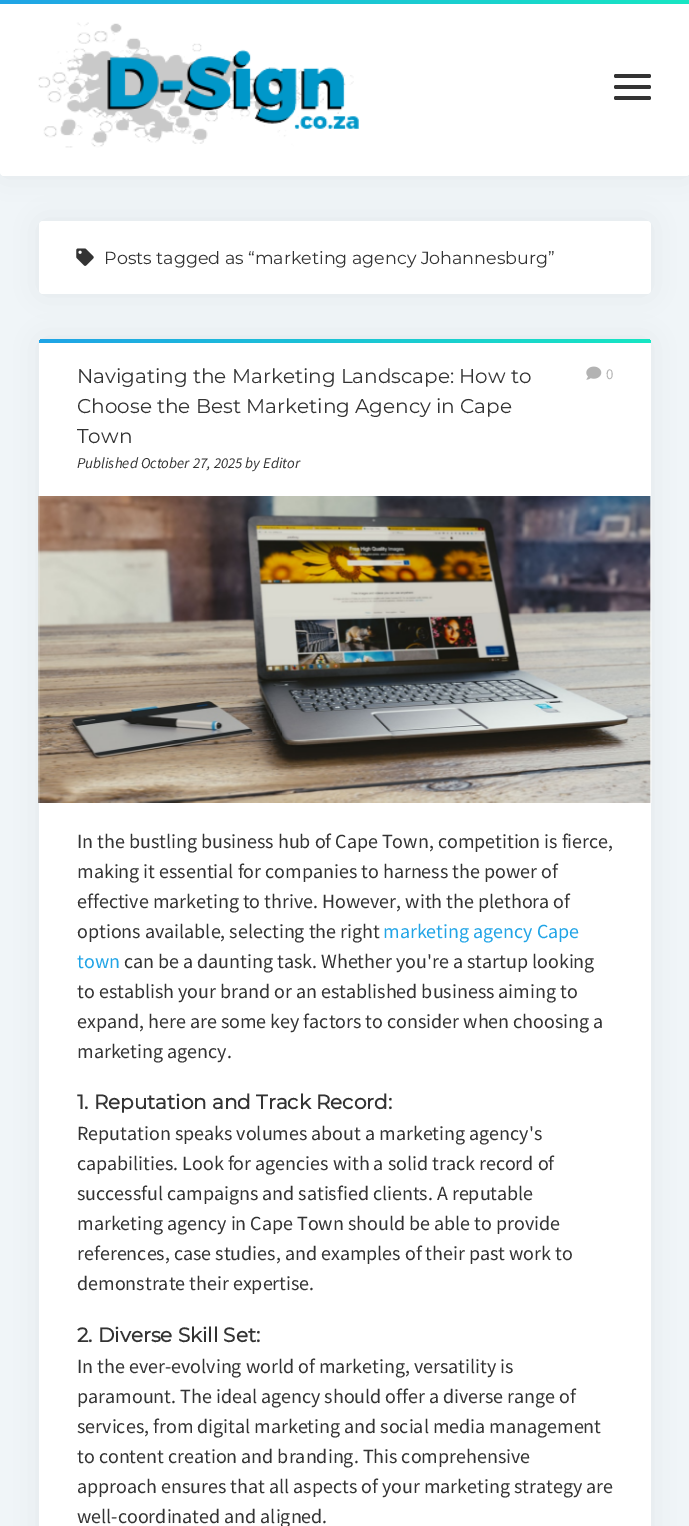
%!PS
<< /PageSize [689 1526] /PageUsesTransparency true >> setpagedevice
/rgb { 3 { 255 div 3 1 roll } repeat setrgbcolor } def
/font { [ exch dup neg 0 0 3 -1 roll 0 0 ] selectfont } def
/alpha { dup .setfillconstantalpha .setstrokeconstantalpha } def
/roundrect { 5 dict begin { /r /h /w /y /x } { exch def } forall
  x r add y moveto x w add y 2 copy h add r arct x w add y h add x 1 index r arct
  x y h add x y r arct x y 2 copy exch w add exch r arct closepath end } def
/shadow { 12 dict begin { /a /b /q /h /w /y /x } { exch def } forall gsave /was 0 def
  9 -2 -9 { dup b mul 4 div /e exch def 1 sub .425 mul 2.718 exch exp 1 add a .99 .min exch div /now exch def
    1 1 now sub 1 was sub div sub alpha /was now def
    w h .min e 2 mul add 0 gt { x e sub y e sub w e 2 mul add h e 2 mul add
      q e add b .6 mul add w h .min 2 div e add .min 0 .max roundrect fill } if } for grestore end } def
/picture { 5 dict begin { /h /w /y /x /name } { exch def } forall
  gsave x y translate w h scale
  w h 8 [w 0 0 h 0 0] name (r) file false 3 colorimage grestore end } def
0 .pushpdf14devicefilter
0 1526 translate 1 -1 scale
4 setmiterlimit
240 245 248 rgb
0 0 689 1526 rectfill
0 0 0 rgb
39 221 612 73 4 15 0.05 shadow
255 255 255 rgb
39 221 612 73 4 roundrect fill
0 0 0 rgb
0 0 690 176 4 15 0.05 shadow
255 255 255 rgb
0 0 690 176 4 roundrect fill
(img/1.rgb) 38 22 321 126 picture
51 51 51 rgb
614 74 37 4 2 roundrect fill
614 85 37 4 2 roundrect fill
614 96 37 4 2 roundrect fill
gsave 0 0 moveto 689 0 lineto 689 4 lineto 0 4 lineto closepath clip newpath
<< /ShadingType 2 /ColorSpace /DeviceRGB /Coords [0 1.9 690 1.9] /Extend [true true] /Function << /FunctionType 2 /Domain [0 1] /C0 [0.125 0.643 0.902] /C1 [0.09 0.902 0.765] /N 1 >> >> shfill grestore
(img/2.rgb) 76 248 18 18 picture
0 0 0 rgb
39 339 612 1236 4 15 0.05 shadow
255 255 255 rgb
39 339 612 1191 4 roundrect fill
gsave 43 339 moveto 647 339 lineto 649 339 651 341 651 343 curveto 39 343 lineto 39 341 41 339 43 339 curveto closepath clip newpath
<< /ShadingType 2 /ColorSpace /DeviceRGB /Coords [39 341 651 341] /Extend [true true] /Function << /FunctionType 2 /Domain [0 1] /C0 [0.125 0.643 0.902] /C1 [0.09 0.902 0.765] /N 1 >> >> shfill grestore
(img/3.rgb) 586 366 16 14 picture
(img/4.rgb) 38 496 614 307 picture
/Montserrat-Thin 17.5 font
51 51 51 rgb
104 264 moveto (Posts tagged as “marketing agency Johannesburg”) show
/Montserrat-Thin 20 font
[
  [(Navigating the Marketing Landscape: How to) 77 383]
  [(Choose the Best Marketing Agency in Cape) 77 413]
  [(Town) 77 443]
] { aload pop moveto show } forall
/SourceSansPro-Regular 15 font
179 179 179 rgb
606 379 moveto (0) show
/SourceSansPro-Italic 15 font
51 51 51 rgb
77 468 moveto (Published October 27, 2025 by Editor) show
/SourceSansPro-Regular 20 font
[
  [(In the bustling business hub of Cape Town, competition is fierce,) 77 848]
  [(making it essential for companies to harness the power of) 77 878]
  [(effective marketing to thrive. However, with the plethora of) 77 908]
  [(options available, selecting the right) 77 938]
] { aload pop moveto show } forall
32 164 230 rgb
383 938 moveto (marketing agency Cape) show
77 968 moveto (town) show
51 51 51 rgb
[
  [(can be a daunting task. Whether you're a startup looking) 124 968]
  [(to establish your brand or an established business aiming to) 77 998]
  [(expand, here are some key factors to consider when choosing a) 77 1028]
  [(marketing agency.) 77 1058]
] { aload pop moveto show } forall
/Montserrat-Bold 20 font
77 1109 moveto (1. Reputation and Track Record:) show
/SourceSansPro-Regular 20 font
[
  [(Reputation speaks volumes about a marketing agency's) 77 1140]
  [(capabilities. Look for agencies with a solid track record of) 77 1170]
  [(successful campaigns and satisfied clients. A reputable) 77 1200]
  [(marketing agency in Cape Town should be able to provide) 77 1230]
  [(references, case studies, and examples of their past work to) 77 1260]
  [(demonstrate their expertise.) 77 1290]
] { aload pop moveto show } forall
/Montserrat-Bold 20 font
77 1342 moveto (2. Diverse Skill Set:) show
/SourceSansPro-Regular 20 font
[
  [(In the ever-evolving world of marketing, versatility is) 77 1373]
  [(paramount. The ideal agency should offer a diverse range of) 77 1403]
  [(services, from digital marketing and social media management) 77 1433]
  [(to content creation and branding. This comprehensive) 77 1463]
  [(approach ensures that all aspects of your marketing strategy are) 77 1493]
  [(well-coordinated and aligned.) 77 1523]
] { aload pop moveto show } forall
.poppdf14devicefilter showpage
